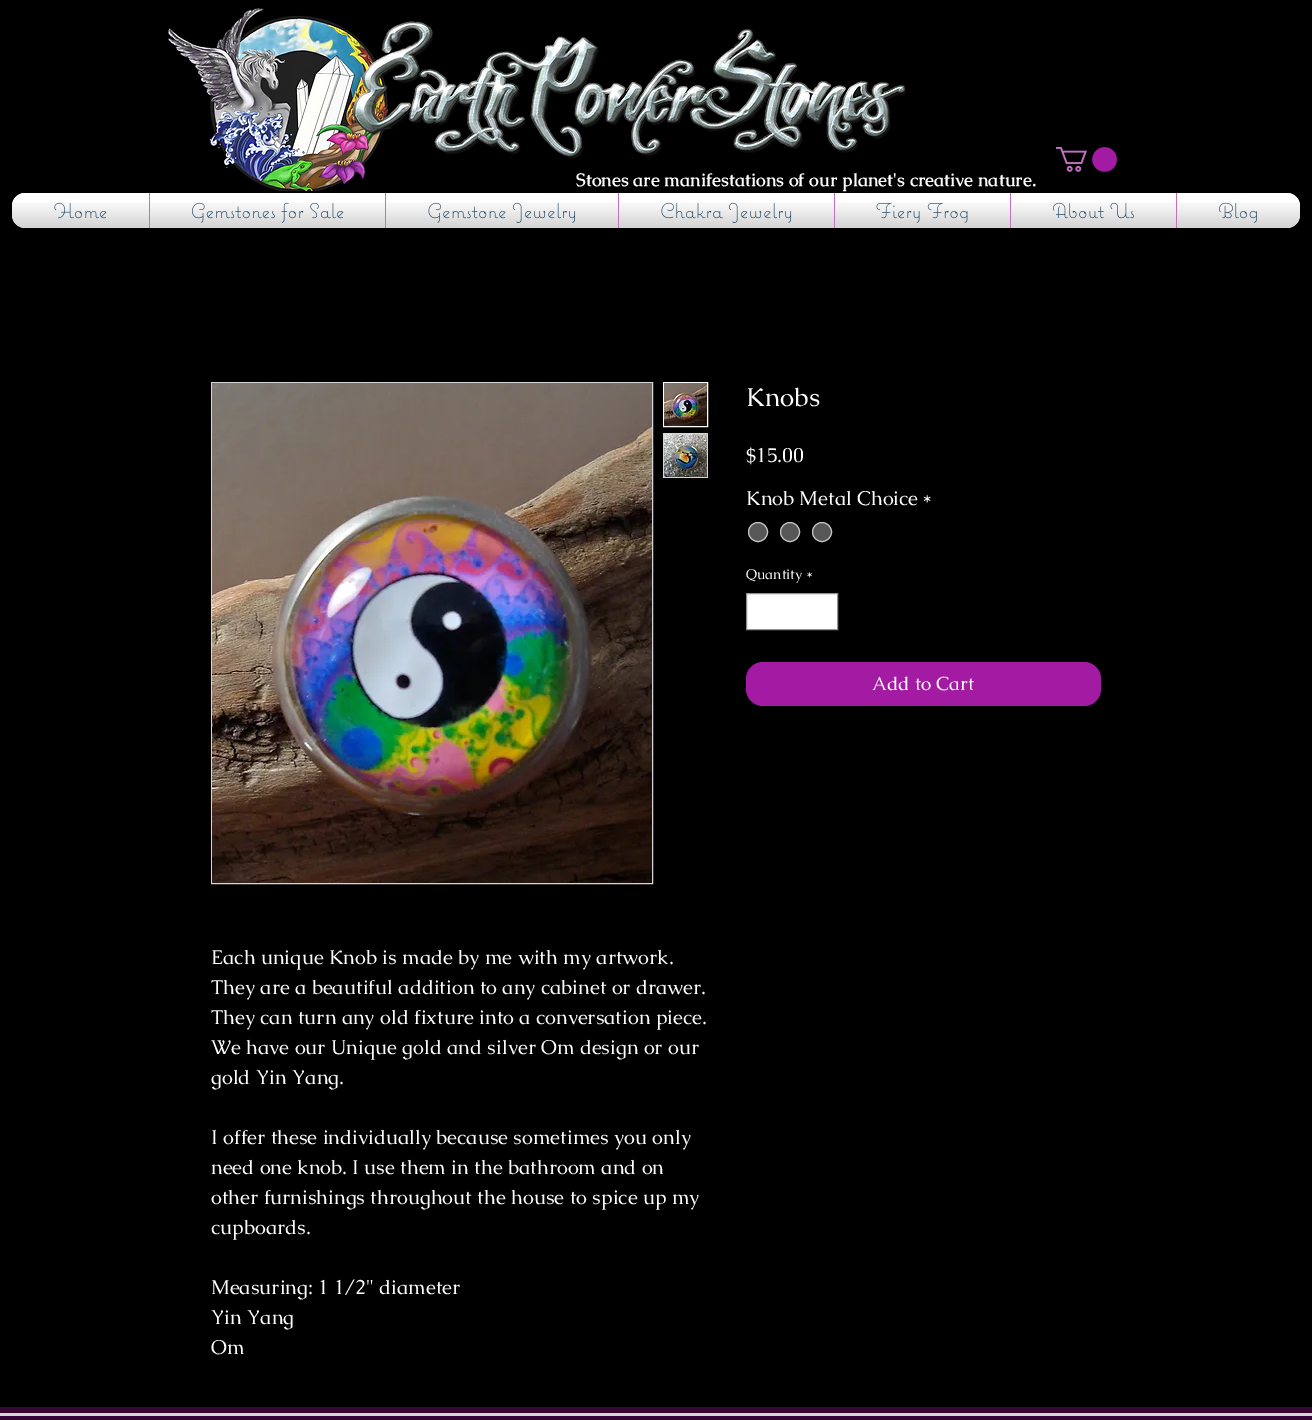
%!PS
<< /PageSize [1312 1420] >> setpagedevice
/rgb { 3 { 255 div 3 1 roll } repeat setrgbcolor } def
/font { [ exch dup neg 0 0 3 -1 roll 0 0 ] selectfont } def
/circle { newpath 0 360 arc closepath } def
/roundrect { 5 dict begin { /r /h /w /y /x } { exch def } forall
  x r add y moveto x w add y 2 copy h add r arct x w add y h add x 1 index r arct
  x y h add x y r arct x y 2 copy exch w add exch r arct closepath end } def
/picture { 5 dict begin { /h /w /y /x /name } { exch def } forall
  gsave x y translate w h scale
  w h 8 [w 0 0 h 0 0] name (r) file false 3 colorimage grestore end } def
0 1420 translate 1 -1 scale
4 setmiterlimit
0 0 0 rgb
0 0 1312 1420 rectfill
(img/1.rgb) 168 8 224 183 picture
(img/2.rgb) 352 21 554 138 picture
(img/3.rgb) 1056 147 61 25 picture
(img/4.rgb) 12 193 1288 26 picture
(img/5.rgb) 12 204 1288 24 picture
255 255 255 rgb
25 193 moveto 149 193 lineto 149 228 lineto 25 228 lineto 18 228 12 222 12 215 curveto 12 206 lineto 12 199 18 193 25 193 curveto closepath fill
[
  [150 193 235 35 255 255 255]
  [149 193 1 35 193 112 193]
  [386 193 232 35 255 255 255]
  [385 193 1 35 193 112 193]
  [619 193 215 35 255 255 255]
  [618 193 1 35 193 112 193]
  [835 193 175 35 255 255 255]
  [834 193 1 35 193 112 193]
  [1011 193 165 35 255 255 255]
  [1010 193 1 35 193 112 193]
] { aload pop rgb rectfill } forall
255 255 255 rgb
1176 193 moveto 1287 193 lineto 1294 193 1300 199 1300 206 curveto 1300 215 lineto 1300 222 1294 228 1287 228 curveto 1176 228 lineto closepath fill
193 112 193 rgb
1176 193 1 35 rectfill
87 87 87 rgb
758 532 9.5 circle gsave fill grestore
201 201 201 rgb
stroke
87 87 87 rgb
790 532 9.5 circle gsave fill grestore
201 201 201 rgb
stroke
87 87 87 rgb
822 532 9.5 circle gsave fill grestore
201 201 201 rgb
stroke
255 255 255 rgb
746.5 593.5 moveto 837.5 593.5 lineto 837.5 629.5 lineto 746.5 629.5 lineto closepath gsave fill grestore
146 146 146 rgb
stroke
163 26 163 rgb
746 662 355 44 17 roundrect fill
214 214 214 rgb
211.5 382.5 441 501 rectstroke
(img/20.rgb) 212 383 440 500 picture
255 255 255 rgb
663.5 382.5 44 44 rectstroke
(img/21.rgb) 664 383 43 43 picture
214 214 214 rgb
663 433 45 45 rectfill
(img/22.rgb) 664 434 43 43 picture
54 8 54 rgb
0 1407 1312 13 rectfill
214 214 214 rgb
0 1413 1312 3 rectfill
/Caudex-Bold 18 font
255 255 255 rgb
576 186 moveto (Stones are manifestations of our planet's creative nature.) show
/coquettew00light-Bold 21 font
0 50 84 rgb
54 218 moveto (Home) show
(img/6.rgb) 54 202 52 16 picture
(img/7.rgb) 12 202 137 26 picture
191 218 moveto (Gemstones for Sale) show
(img/8.rgb) 192 202 151 21 picture
(img/9.rgb) 150 202 235 26 picture
427 218 moveto (Gemstone Jewelry) show
(img/10.rgb) 428 202 147 21 picture
(img/11.rgb) 386 202 232 26 picture
660 218 moveto (Chakra Jewelry) show
(img/12.rgb) 661 202 130 21 picture
(img/13.rgb) 619 202 215 26 picture
876 218 moveto (Fiery Frog) show
(img/14.rgb) 876 203 92 20 picture
(img/15.rgb) 835 202 175 26 picture
1052 218 moveto (About Us) show
(img/16.rgb) 1053 202 81 16 picture
(img/17.rgb) 1011 202 165 26 picture
1218 218 moveto (Blog) show
(img/18.rgb) 1219 202 38 21 picture
(img/19.rgb) 1177 202 123 26 picture
/Caudex-Regular 26 font
255 255 255 rgb
746 406 moveto (Knobs) show
/Caudex-Regular 20 font
[
  [($15.00) 746 462]
  [(Knob Metal Choice) 746 505]
  [(*) 922 505]
] { aload pop moveto show } forall
/Caudex-Regular 14 font
746 579 moveto (Quantity *) show
/Caudex-Regular 19 font
872 690 moveto (Add to Cart) show
/Caudex-Regular 20 font
[
  [(Each unique Knob is made by me with my artwork.) 211 964]
  [(They are a beautiful addition to any cabinet or drawer.) 211 994]
  [(They can turn any old fixture into a conversation piece.) 211 1024]
  [(We have our Unique gold and silver Om design or our) 211 1054]
  [(gold Yin Yang.) 211 1084]
  [(I offer these individually because sometimes you only) 211 1144]
  [(need one knob. I use them in the bathroom and on) 211 1174]
  [(other furnishings throughout the house to spice up my) 211 1204]
  [(cupboards.) 211 1234]
  [(Measuring: 1 1/2" diameter) 211 1294]
  [(Yin Yang) 211 1324]
  [(Om) 211 1354]
] { aload pop moveto show } forall
showpage
